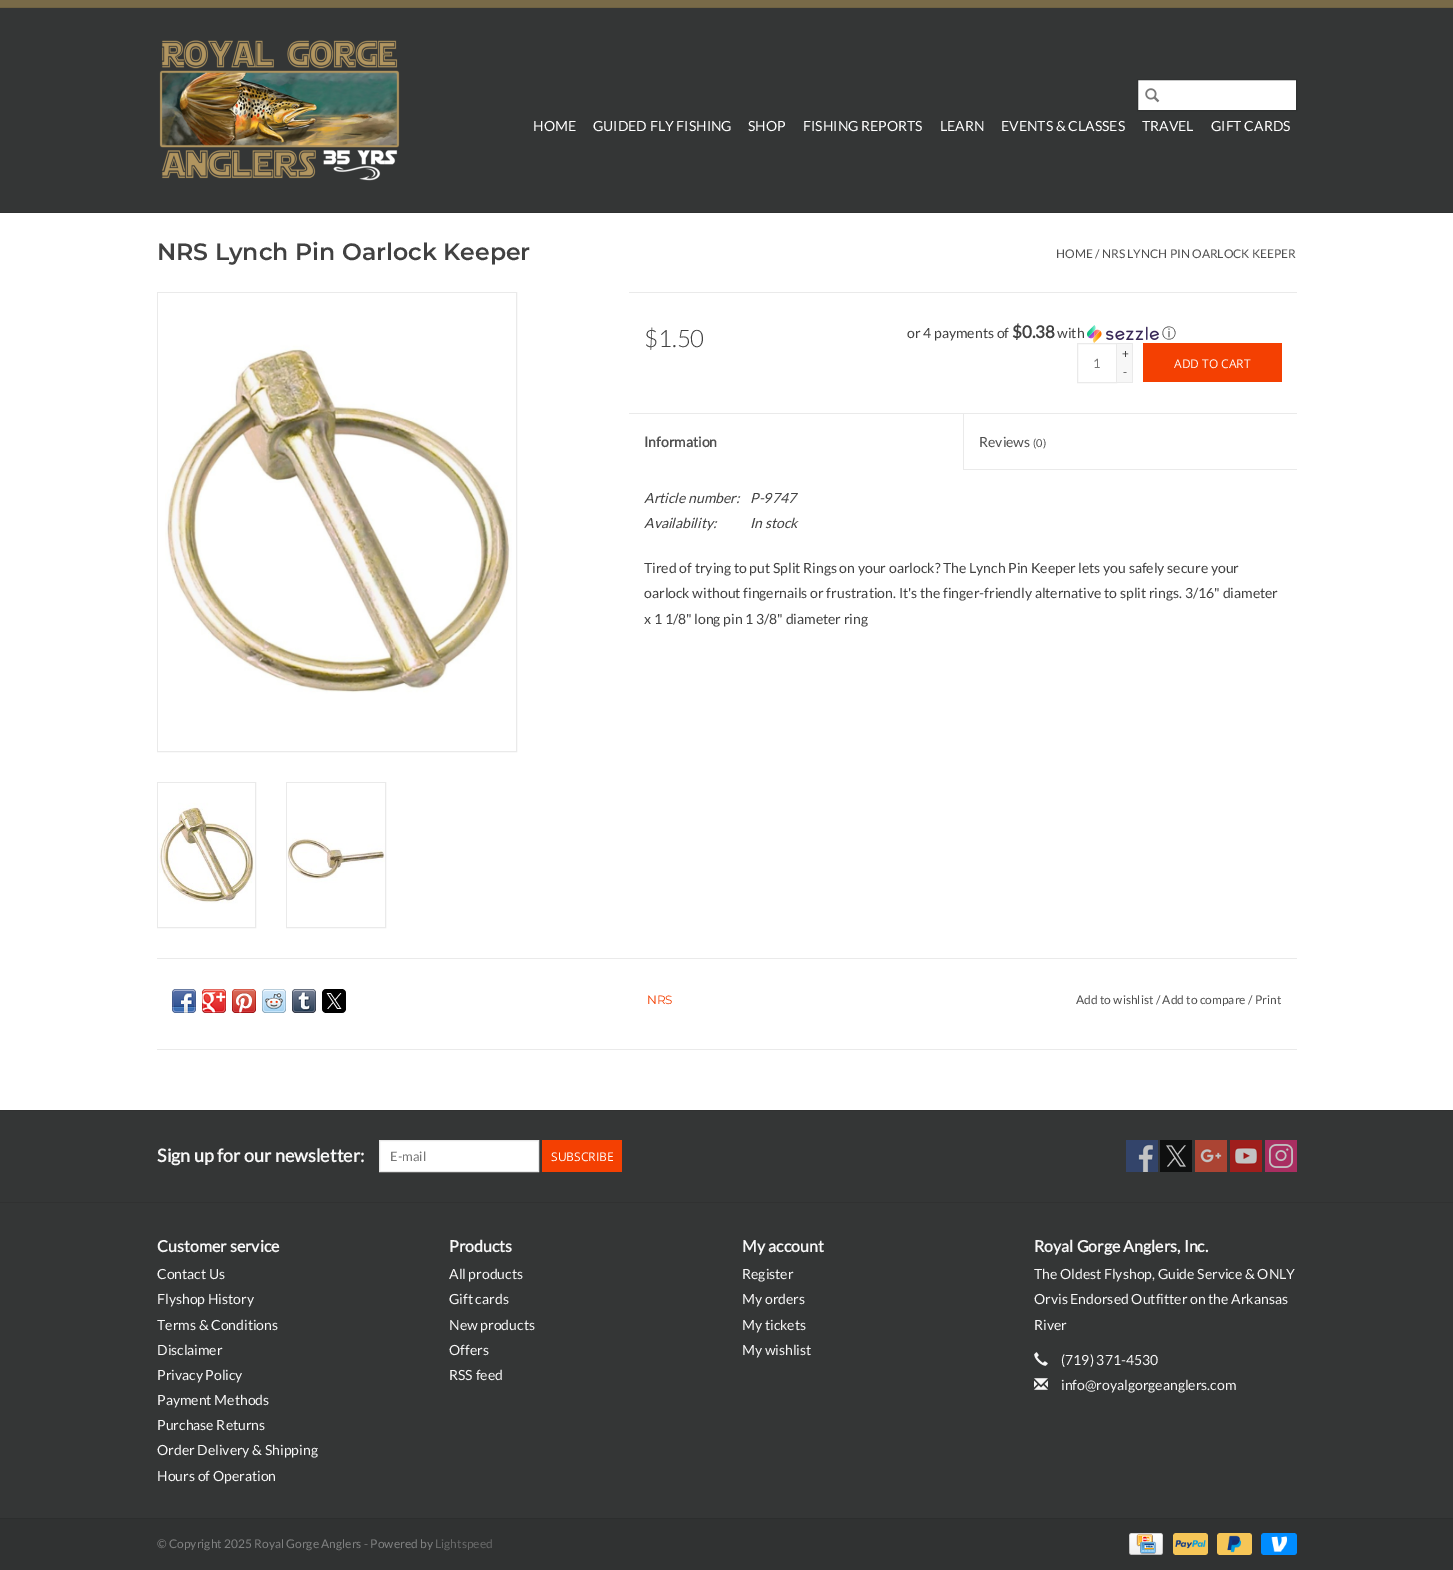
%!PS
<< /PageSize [1453 1570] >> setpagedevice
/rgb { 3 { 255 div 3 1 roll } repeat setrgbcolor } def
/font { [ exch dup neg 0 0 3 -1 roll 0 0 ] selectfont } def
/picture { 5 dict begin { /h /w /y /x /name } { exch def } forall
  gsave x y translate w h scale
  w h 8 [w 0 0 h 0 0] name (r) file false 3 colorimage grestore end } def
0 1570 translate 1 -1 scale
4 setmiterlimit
255 255 255 rgb
0 0 1453 1570 rectfill
[
  [0 8 1453 204 52 54 54]
  [0 212 1453 1 47 49 49]
  [0 0 1453 7 120 106 72]
  [0 7 1453 1 111 98 66]
] { aload pop rgb rectfill } forall
(img/1.rgb) 159 40 241 141 picture
255 255 255 rgb
1137.5 79.5 moveto 1296.5 79.5 lineto 1296.5 110.5 lineto 1137.5 110.5 lineto closepath gsave fill grestore
47 49 49 rgb
stroke
(img/2.rgb) 1145 88 15 15 picture
234 234 234 rgb
157.5 292.5 359 459 rectstroke
(img/3.rgb) 158 293 358 458 picture
157.5 782.5 98 145 rectstroke
(img/4.rgb) 158 783 97 144 picture
286.5 782.5 99 145 rectstroke
(img/5.rgb) 287 783 98 144 picture
629 292 668 1 rectfill
(img/6.rgb) 1087 325 72 18 picture
1077.5 343.5 39 39 rectstroke
[
  [1117 344 15 38 247 247 247]
  [1117 343 16 1 234 234 234]
  [1132 343 1 40 234 234 234]
  [1117 382 16 1 234 234 234]
  [1143 343 139 39 244 64 2]
  [629 413 668 1 234 234 234]
  [963 469 334 1 234 234 234]
  [963 414 1 56 234 234 234]
  [157 958 1140 1 234 234 234]
  [157 1049 1140 1 234 234 234]
] { aload pop rgb rectfill } forall
(img/7.rgb) 172 989 24 24 picture
(img/8.rgb) 202 989 24 24 picture
(img/9.rgb) 232 989 24 24 picture
(img/10.rgb) 262 989 24 24 picture
(img/11.rgb) 292 989 24 24 picture
(img/12.rgb) 322 989 24 24 picture
52 54 54 rgb
0 1111 1453 407 rectfill
48 49 49 rgb
0 1110 1453 1 rectfill
255 255 255 rgb
379.5 1140.5 moveto 538.5 1140.5 lineto 538.5 1171.5 lineto 379.5 1171.5 lineto closepath gsave fill grestore
233 233 233 rgb
stroke
244 64 2 rgb
542 1140 80 32 rectfill
(img/13.rgb) 1126 1140 32 32 picture
(img/14.rgb) 1160 1140 32 32 picture
(img/15.rgb) 1195 1140 32 32 picture
(img/16.rgb) 1230 1140 32 32 picture
(img/17.rgb) 1265 1140 32 32 picture
48 49 49 rgb
0 1202 1453 1 rectfill
(img/18.rgb) 1034 1352 14 14 picture
(img/19.rgb) 1034 1378 14 12 picture
44 46 46 rgb
0 1518 1453 1 rectfill
48 50 50 rgb
0 1519 1453 51 rectfill
(img/20.rgb) 1129 1533 34 22 picture
(img/21.rgb) 1173 1533 35 22 picture
(img/22.rgb) 1217 1533 35 22 picture
(img/23.rgb) 1261 1533 36 22 picture
/Lato-Regular 14 font
255 255 255 rgb
[
  [(HOME) 533 131]
  [(GUIDED FLY FISHING) 593 131]
  [(SHOP) 748 131]
  [(FISHING REPORTS) 803 131]
  [(LEARN) 940 131]
  [(EVENTS & CLASSES) 1001 131]
  [(TRAVEL) 1142 131]
  [(GIFT CARDS) 1211 131]
] { aload pop moveto show } forall
/Montserrat-SemiBold 23.6 font
65 65 65 rgb
157 260 moveto (NRS Lynch Pin Oarlock Keeper) show
/Lato-Regular 12 font
80 80 80 rgb
1056 258 moveto (HOME / NRS LYNCH PIN OARLOCK KEEPER) show
/Lato-Light 24 font
65 65 65 rgb
644 347 moveto ($1.50) show
/Lato-Regular 14 font
907 338 moveto (or 4 payments of) show
/Lato-Bold 17 font
1012 338 moveto ($0.38) show
/Lato-Regular 14 font
1057 338 moveto (with) show
/WenQuanYiZenHei-Medium 14 font
1162 338 moveto (ⓘ) show
/Lato-Regular 13 font
119 119 119 rgb
1093 368 moveto (1) show
/Lato-Regular 12 font
65 65 65 rgb
1122 358 moveto (+) show
1123 376 moveto (-) show
/OpenSans-Regular 12 font
255 255 255 rgb
1174 368 moveto (ADD TO CART) show
/Lato-Bold 14 font
80 80 80 rgb
644 447 moveto (Information) show
/Lato-Regular 14 font
979 447 moveto (Reviews) show
/Lato-Regular 11 font
1033 447 moveto (\(0\)) show
/Lato-Italic 14 font
65 65 65 rgb
[
  [(Article number:) 644 503]
  [(P-9747) 750 503]
  [(Availability:) 644 528]
  [(In stock) 750 528]
] { aload pop moveto show } forall
/Lato-Regular 14 font
[
  [(Tired of trying to put Split Rings on your oarlock? The Lynch Pin Keeper lets you safely secure your) 644 573]
  [(oarlock without fingernails or frustration. It's the finger-friendly alternative to split rings. 3/16" diameter) 644 598]
  [(x 1 1/8" long pin 1 3/8" diameter ring) 644 624]
] { aload pop moveto show } forall
/Montserrat-Regular 12 font
244 64 2 rgb
647 1004 moveto (NRS) show
/Lato-Regular 12 font
80 80 80 rgb
1076 1004 moveto (Add to wishlist / Add to compare / Print) show
/Lato-Bold 18 font
247 247 247 rgb
157 1162 moveto (Sign up for our newsletter:) show
/Lato-Regular 13 font
119 119 119 rgb
390 1161 moveto (E-mail) show
/OpenSans-Regular 12 font
255 255 255 rgb
551 1161 moveto (SUBSCRIBE) show
/Lato-Bold 16 font
247 247 247 rgb
157 1252 moveto (Customer service) show
/Lato-Regular 14 font
[
  [(Contact Us) 157 1279]
  [(Flyshop History) 157 1304]
  [(Terms & Conditions) 157 1330]
  [(Disclaimer) 157 1355]
  [(Privacy Policy) 157 1380]
  [(Payment Methods) 157 1405]
  [(Purchase Returns) 157 1430]
  [(Order Delivery & Shipping) 157 1455]
  [(Hours of Operation) 157 1481]
] { aload pop moveto show } forall
/Lato-Bold 16 font
449 1252 moveto (Products) show
/Lato-Regular 14 font
[
  [(All products) 449 1279]
  [(Gift cards) 449 1304]
  [(New products) 449 1330]
  [(Offers) 449 1355]
  [(RSS feed) 449 1380]
] { aload pop moveto show } forall
/Lato-Bold 16 font
742 1252 moveto (My account) show
/Lato-Regular 14 font
[
  [(Register) 742 1279]
  [(My orders) 742 1304]
  [(My tickets) 742 1330]
  [(My wishlist) 742 1355]
] { aload pop moveto show } forall
/Lato-Bold 16 font
1034 1252 moveto (Royal Gorge Anglers, Inc.) show
/Lato-Regular 14 font
[
  [(The Oldest Flyshop, Guide Service & ONLY) 1034 1279]
  [(Orvis Endorsed Outfitter on the Arkansas) 1034 1304]
  [(River) 1034 1330]
  [(\(719\) 371-4530) 1061 1365]
  [(info@royalgorgeanglers.com) 1061 1390]
] { aload pop moveto show } forall
/Lato-Regular 12 font
128 129 129 rgb
157 1548 moveto (© Copyright 2025 Royal Gorge Anglers - Powered by) show
104 105 105 rgb
435 1548 moveto (Lightspeed) show
showpage
